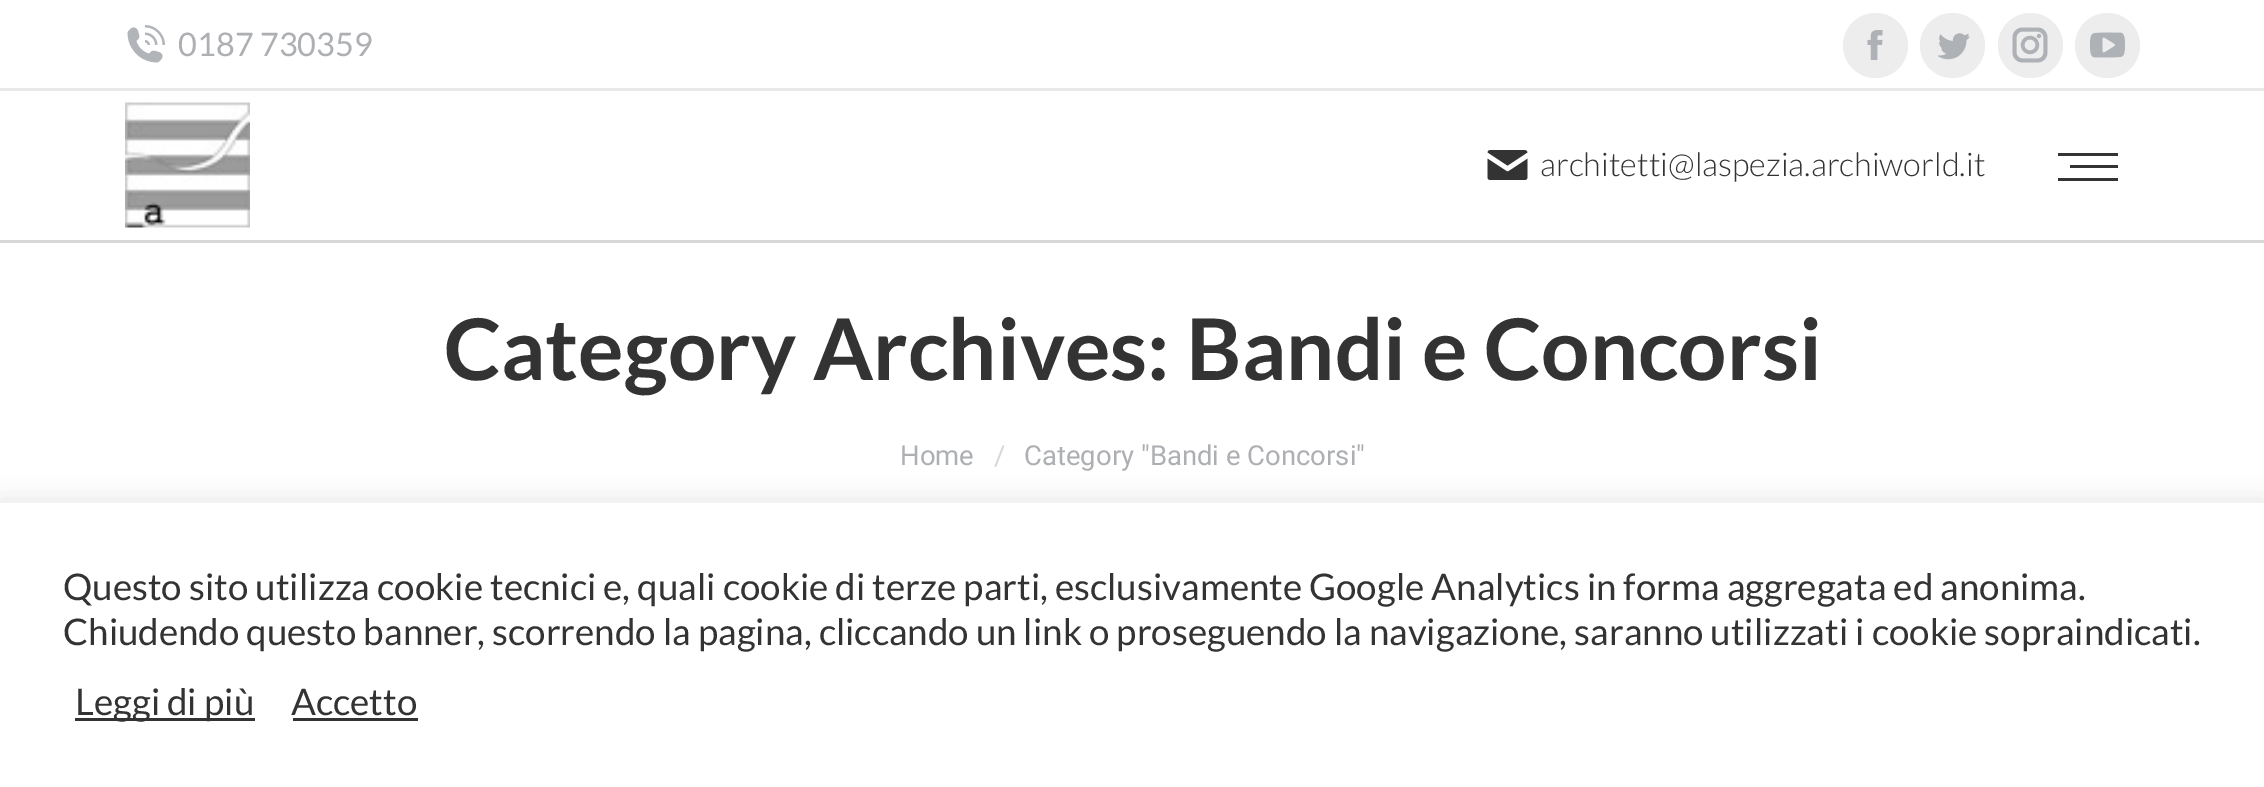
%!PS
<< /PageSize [2264 787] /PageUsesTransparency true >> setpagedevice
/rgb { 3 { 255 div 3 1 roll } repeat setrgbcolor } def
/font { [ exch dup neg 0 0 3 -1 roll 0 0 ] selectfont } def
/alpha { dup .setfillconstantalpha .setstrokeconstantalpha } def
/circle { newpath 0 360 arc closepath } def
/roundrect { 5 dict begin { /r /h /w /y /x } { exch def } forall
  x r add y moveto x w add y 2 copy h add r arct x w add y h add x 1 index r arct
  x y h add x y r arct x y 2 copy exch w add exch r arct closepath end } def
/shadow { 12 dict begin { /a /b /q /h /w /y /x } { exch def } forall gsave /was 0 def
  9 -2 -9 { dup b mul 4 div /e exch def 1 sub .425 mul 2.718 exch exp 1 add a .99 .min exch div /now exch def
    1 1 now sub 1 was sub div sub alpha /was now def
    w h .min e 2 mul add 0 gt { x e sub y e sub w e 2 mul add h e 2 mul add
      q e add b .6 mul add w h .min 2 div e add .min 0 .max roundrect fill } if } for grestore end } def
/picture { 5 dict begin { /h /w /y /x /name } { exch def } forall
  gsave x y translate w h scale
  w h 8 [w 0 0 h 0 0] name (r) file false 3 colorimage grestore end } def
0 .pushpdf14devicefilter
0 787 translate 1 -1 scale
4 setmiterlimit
255 255 255 rgb
0 0 2264 787 rectfill
216 216 216 rgb
0 240 2264 3 rectfill
(img/1.rgb) 127 25 38 38 picture
237 237 237 rgb
1875.5 45.5 32.5 circle fill
(img/2.rgb) 1867 30 16 30 picture
1952.5 45.5 32.5 circle fill
(img/3.rgb) 1938 33 32 27 picture
2030.5 45.5 32.5 circle fill
(img/4.rgb) 2012 27 36 36 picture
2107.5 45.5 32.5 circle fill
(img/5.rgb) 2090 32 35 26 picture
233 233 233 rgb
0 88 2264 3 rectfill
(img/6.rgb) 125 102 125 126 picture
(img/7.rgb) 1487 150 41 30 picture
[
  [2058 153 60 3 51 51 51]
  [2070 165 48 3 51 51 51]
  [2058 178 60 3 51 51 51]
] { aload pop rgb rectfill } forall
172 171 171 rgb
0 500 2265 285 0 12.5 0.3 shadow
[
  [0 503 2264 284 255 255 255]
  [75 718 180 3 51 51 51]
  [293 718 125 3 51 51 51]
] { aload pop rgb rectfill } forall
/Lato-Regular 32.5 font
173 175 179 rgb
178 56 moveto (0187 730359) show
/Lato-Light 32.5 font
51 51 51 rgb
1540 176 moveto (architetti@laspezia.archiworld.it) show
/Lato-Bold 85 font
444 380 moveto (Category Archives: Bandi e Concorsi) show
/Roboto-Regular 27.5 font
173 175 179 rgb
900 465 moveto (Home) show
214 215 217 rgb
994 465 moveto (/) show
173 175 179 rgb
1024 465 moveto (Category "Bandi e Concorsi") show
/Lato-Regular 36.67 font
51 51 51 rgb
[
  [(Questo sito utilizza cookie tecnici e, quali cookie di terze parti, esclusivamente Google Analytics in forma aggregata ed anonima.) 63 600]
  [(Chiudendo questo banner, scorrendo la pagina, cliccando un link o proseguendo la navigazione, saranno utilizzati i cookie sopraindicati.) 63 645]
  [(Leggi di più) 75 715]
  [(Accetto) 291 715]
] { aload pop moveto show } forall
.poppdf14devicefilter showpage
